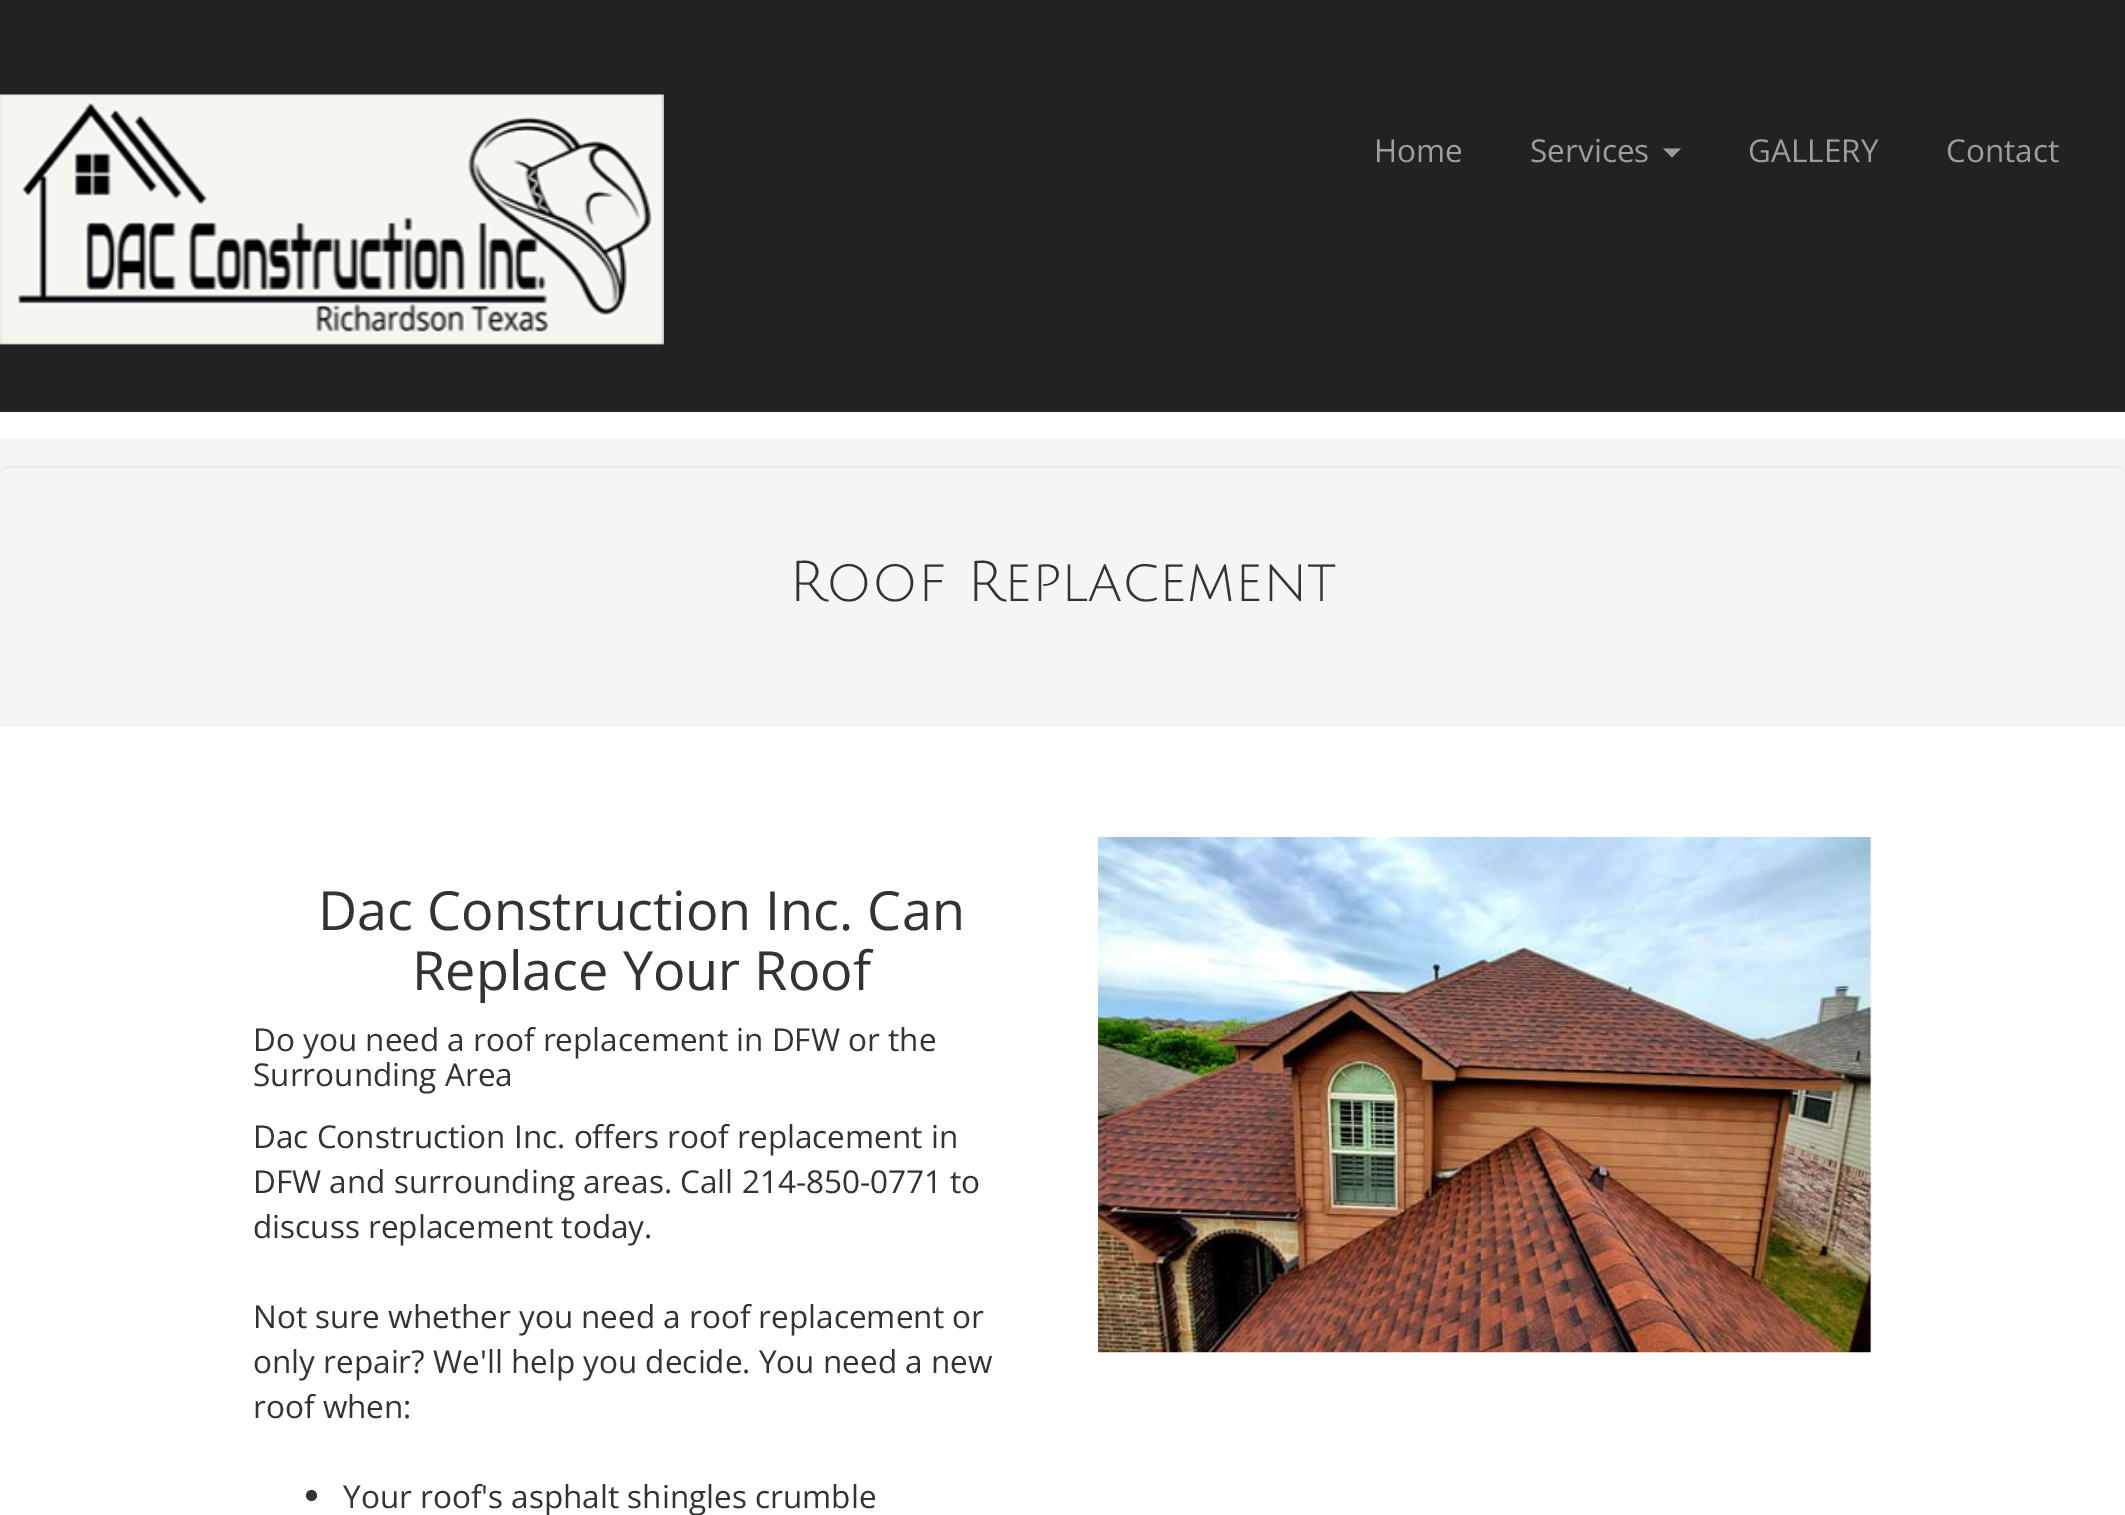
%!PS
<< /PageSize [2125 1515] >> setpagedevice
/rgb { 3 { 255 div 3 1 roll } repeat setrgbcolor } def
/font { [ exch dup neg 0 0 3 -1 roll 0 0 ] selectfont } def
/circle { newpath 0 360 arc closepath } def
/picture { 5 dict begin { /h /w /y /x /name } { exch def } forall
  gsave x y translate w h scale
  w h 8 [w 0 0 h 0 0] name (r) file false 3 colorimage grestore end } def
0 1515 translate 1 -1 scale
4 setmiterlimit
255 255 255 rgb
0 0 2125 1515 rectfill
34 34 34 rgb
0 0 2125 412 rectfill
(img/1.rgb) 0 94 664 251 picture
157 157 157 rgb
1663 148.5 moveto 1681 148.5 lineto 1672 157.5 lineto closepath fill
245 245 245 rgb
0 439 2125 288 rectfill
233 233 233 rgb
9 468 moveto 2117 468 lineto 2122 468 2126 472 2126 477 curveto 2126 471 2123 466 2117 466 curveto 9 466 lineto 3 466 0 471 0 477 curveto 0 472 4 468 9 468 curveto closepath fill
51 51 51 rgb
311.5 1495.5 5.5 circle fill
(img/2.rgb) 1098 837 774 516 picture
/OpenSans-Regular 31.5 font
157 157 157 rgb
[
  [(Home) 1374 162]
  [(Services) 1530 162]
  [(GALLERY) 1748 162]
  [(Contact) 1946 162]
] { aload pop moveto show } forall
/JuliusSansOne-Regular 56.25 font
51 51 51 rgb
789 601 moveto (Roof Replacement) show
/OpenSans-Regular 54 font
318 930 moveto (Dac Construction Inc. Can) show
412 990 moveto (Replace Your Roof) show
/OpenSans-Regular 31.5 font
[
  [(Do you need a roof replacement in DFW or the) 253 1051]
  [(Surrounding Area) 253 1086]
  [(Dac Construction Inc. offers roof replacement in) 253 1148]
  [(DFW and surrounding areas. Call 214-850-0771 to) 253 1193]
  [(discuss replacement today.) 253 1238]
  [(Not sure whether you need a roof replacement or) 253 1328]
  [(only repair? We'll help you decide. You need a new) 253 1373]
  [(roof when:) 253 1418]
  [(Your roof's asphalt shingles crumble) 343 1508]
] { aload pop moveto show } forall
showpage
